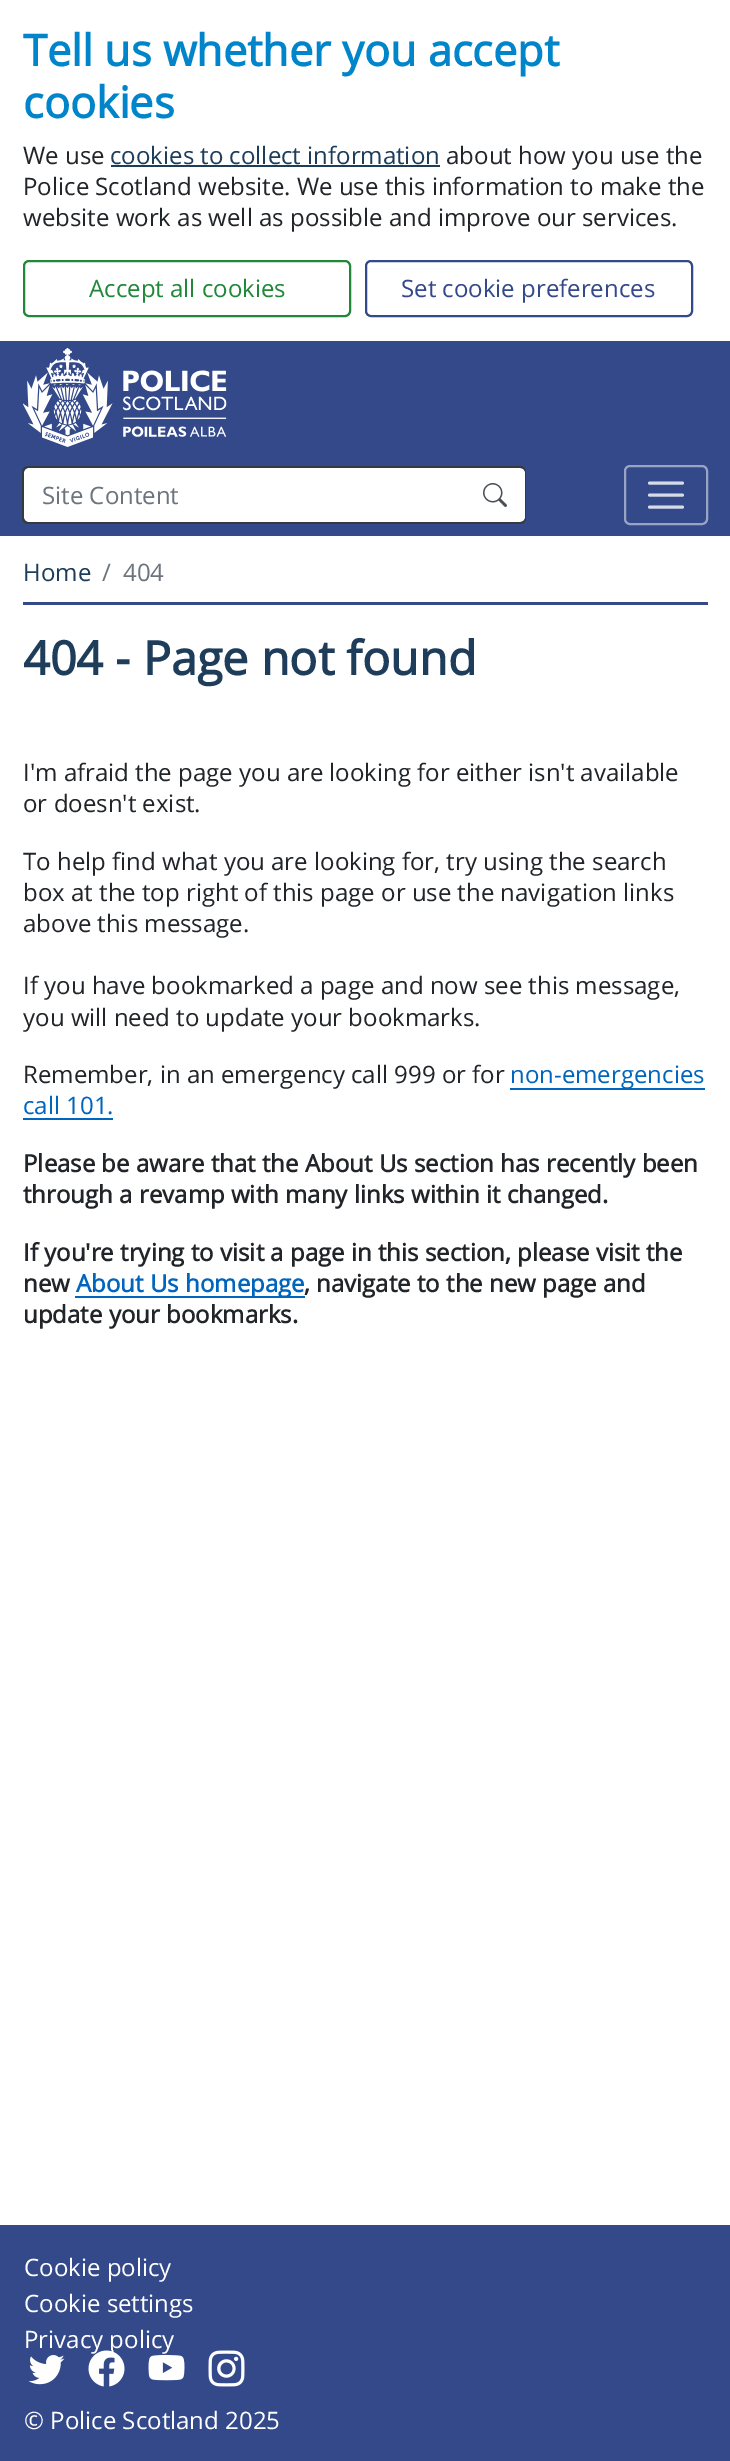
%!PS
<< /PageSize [730 2461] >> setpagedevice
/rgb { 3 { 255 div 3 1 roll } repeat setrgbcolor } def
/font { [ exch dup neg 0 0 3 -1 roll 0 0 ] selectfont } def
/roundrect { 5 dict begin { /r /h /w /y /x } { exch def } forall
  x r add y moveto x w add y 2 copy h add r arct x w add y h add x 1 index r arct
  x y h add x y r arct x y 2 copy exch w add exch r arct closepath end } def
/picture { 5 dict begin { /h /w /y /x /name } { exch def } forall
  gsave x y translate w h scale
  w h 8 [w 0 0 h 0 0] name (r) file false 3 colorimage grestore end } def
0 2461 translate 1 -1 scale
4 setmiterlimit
255 255 255 rgb
0 0 730 2461 rectfill
30 61 91 rgb
111 165 329 2 rectfill
33 135 57 rgb
2 setlinewidth
24 261 326 55 5 roundrect stroke
51 73 138 rgb
366 261 326 55 5 roundrect stroke
0 341 730 195 rectfill
(img/1.rgb) 23 348 204 99 picture
255 255 255 rgb
29 468 moveto 465 468 lineto 465 522 lineto 29 522 lineto 26 522 24 520 24 517 curveto 24 473 lineto 24 470 26 468 29 468 curveto closepath fill
52 58 64 rgb
28 466 moveto 465 466 lineto 465 524 lineto 28 524 lineto 25 524 22 521 22 518 curveto 22 472 lineto 22 469 25 466 28 466 curveto closepath 28 468 moveto 465 468 lineto 465 522 lineto 28 522 lineto 26 522 24 520 24 518 curveto 24 472 lineto 24 470 26 468 28 468 curveto closepath eofill
255 255 255 rgb
465 468 moveto 520 468 lineto 523 468 525 470 525 473 curveto 525 517 lineto 525 520 523 522 520 522 curveto 465 522 lineto closepath fill
52 58 64 rgb
465 466 moveto 520 466 lineto 524 466 526 469 526 472 curveto 526 518 lineto 526 521 524 524 520 524 curveto 465 524 lineto closepath 465 468 moveto 520 468 lineto 523 468 525 470 525 472 curveto 525 518 lineto 525 520 523 522 520 522 curveto 465 522 lineto closepath eofill
(img/2.rgb) 483 483 24 24 picture
153 164 197 rgb
625 466 82 58 5 roundrect stroke
214 219 232 rgb
3 setlinewidth
1 setlinecap
649.5 483 moveto 682.5 483 lineto 649.5 495 moveto 682.5 495 lineto 649.5 507 moveto 682.5 507 lineto stroke
[
  [23 602 685 3 51 73 138]
  [510 1088 195 2 0 101 189]
  [23 1118 90 2 0 101 189]
  [75 1296 230 2 0 101 189]
  [0 2225 730 236 51 73 138]
] { aload pop rgb rectfill } forall
(img/3.rgb) 28 2355 37 30 picture
(img/5.rgb) 148 2354 37 27 picture
(img/6.rgb) 208 2350 37 37 picture
/OpenSans-Bold 43.25 font
0 133 202 rgb
23 66 moveto (Tell us whether you accept) show
23 118 moveto (cookies) show
/OpenSans-Regular 24 font
33 37 41 rgb
23 164 moveto (We use) show
30 61 91 rgb
110 164 moveto (cookies to collect information) show
33 37 41 rgb
[
  [(about how you use the) 446 164]
  [(Police Scotland website. We use this information to make the) 23 195]
  [(website work as well as possible and improve our services.) 23 226]
] { aload pop moveto show } forall
33 135 57 rgb
89 297 moveto (Accept all cookies) show
51 73 138 rgb
401 297 moveto (Set cookie preferences) show
108 117 125 rgb
42 504 moveto (Site Content) show
30 61 91 rgb
23 581 moveto (Home) show
108 117 125 rgb
102 581 moveto (/) show
123 581 moveto (404) show
/OpenSans-Bold 46.75 font
30 61 91 rgb
23 675 moveto (404 - Page not found) show
/OpenSans-Regular 24 font
33 37 41 rgb
[
  [(I'm afraid the page you are looking for either isn't available) 23 781]
  [(or doesn't exist.) 23 812]
  [(To help find what you are looking for, try using the search) 23 870]
  [(box at the top right of this page or use the navigation links) 23 901]
  [(above this message.) 23 932]
  [(If you have bookmarked a page and now see this message,) 23 994]
  [(you will need to update your bookmarks.) 23 1026]
  [(Remember, in an emergency call 999 or for) 23 1083]
] { aload pop moveto show } forall
0 101 189 rgb
510 1083 moveto (non-emergencies) show
23 1114 moveto (call 101.) show
/OpenSans-Bold 24 font
33 37 41 rgb
[
  [(Please be aware that the About Us section has recently been) 23 1172]
  [(through a revamp with many links within it changed.) 23 1203]
  [(If you're trying to visit a page in this section, please visit the) 23 1261]
  [(new) 23 1292]
] { aload pop moveto show } forall
0 101 189 rgb
76 1292 moveto (About Us homepage) show
33 37 41 rgb
304 1292 moveto (, navigate to the new page and) show
23 1323 moveto (update your bookmarks.) show
/OpenSans-Regular 24 font
255 255 255 rgb
[
  [(Cookie policy) 24 2276]
  [(Cookie settings) 24 2312]
  [(Privacy policy) 24 2348]
] { aload pop moveto show } forall
(img/4.rgb) 88 2350 37 37 picture
24 2429 moveto (© Police Scotland 2025) show
showpage
